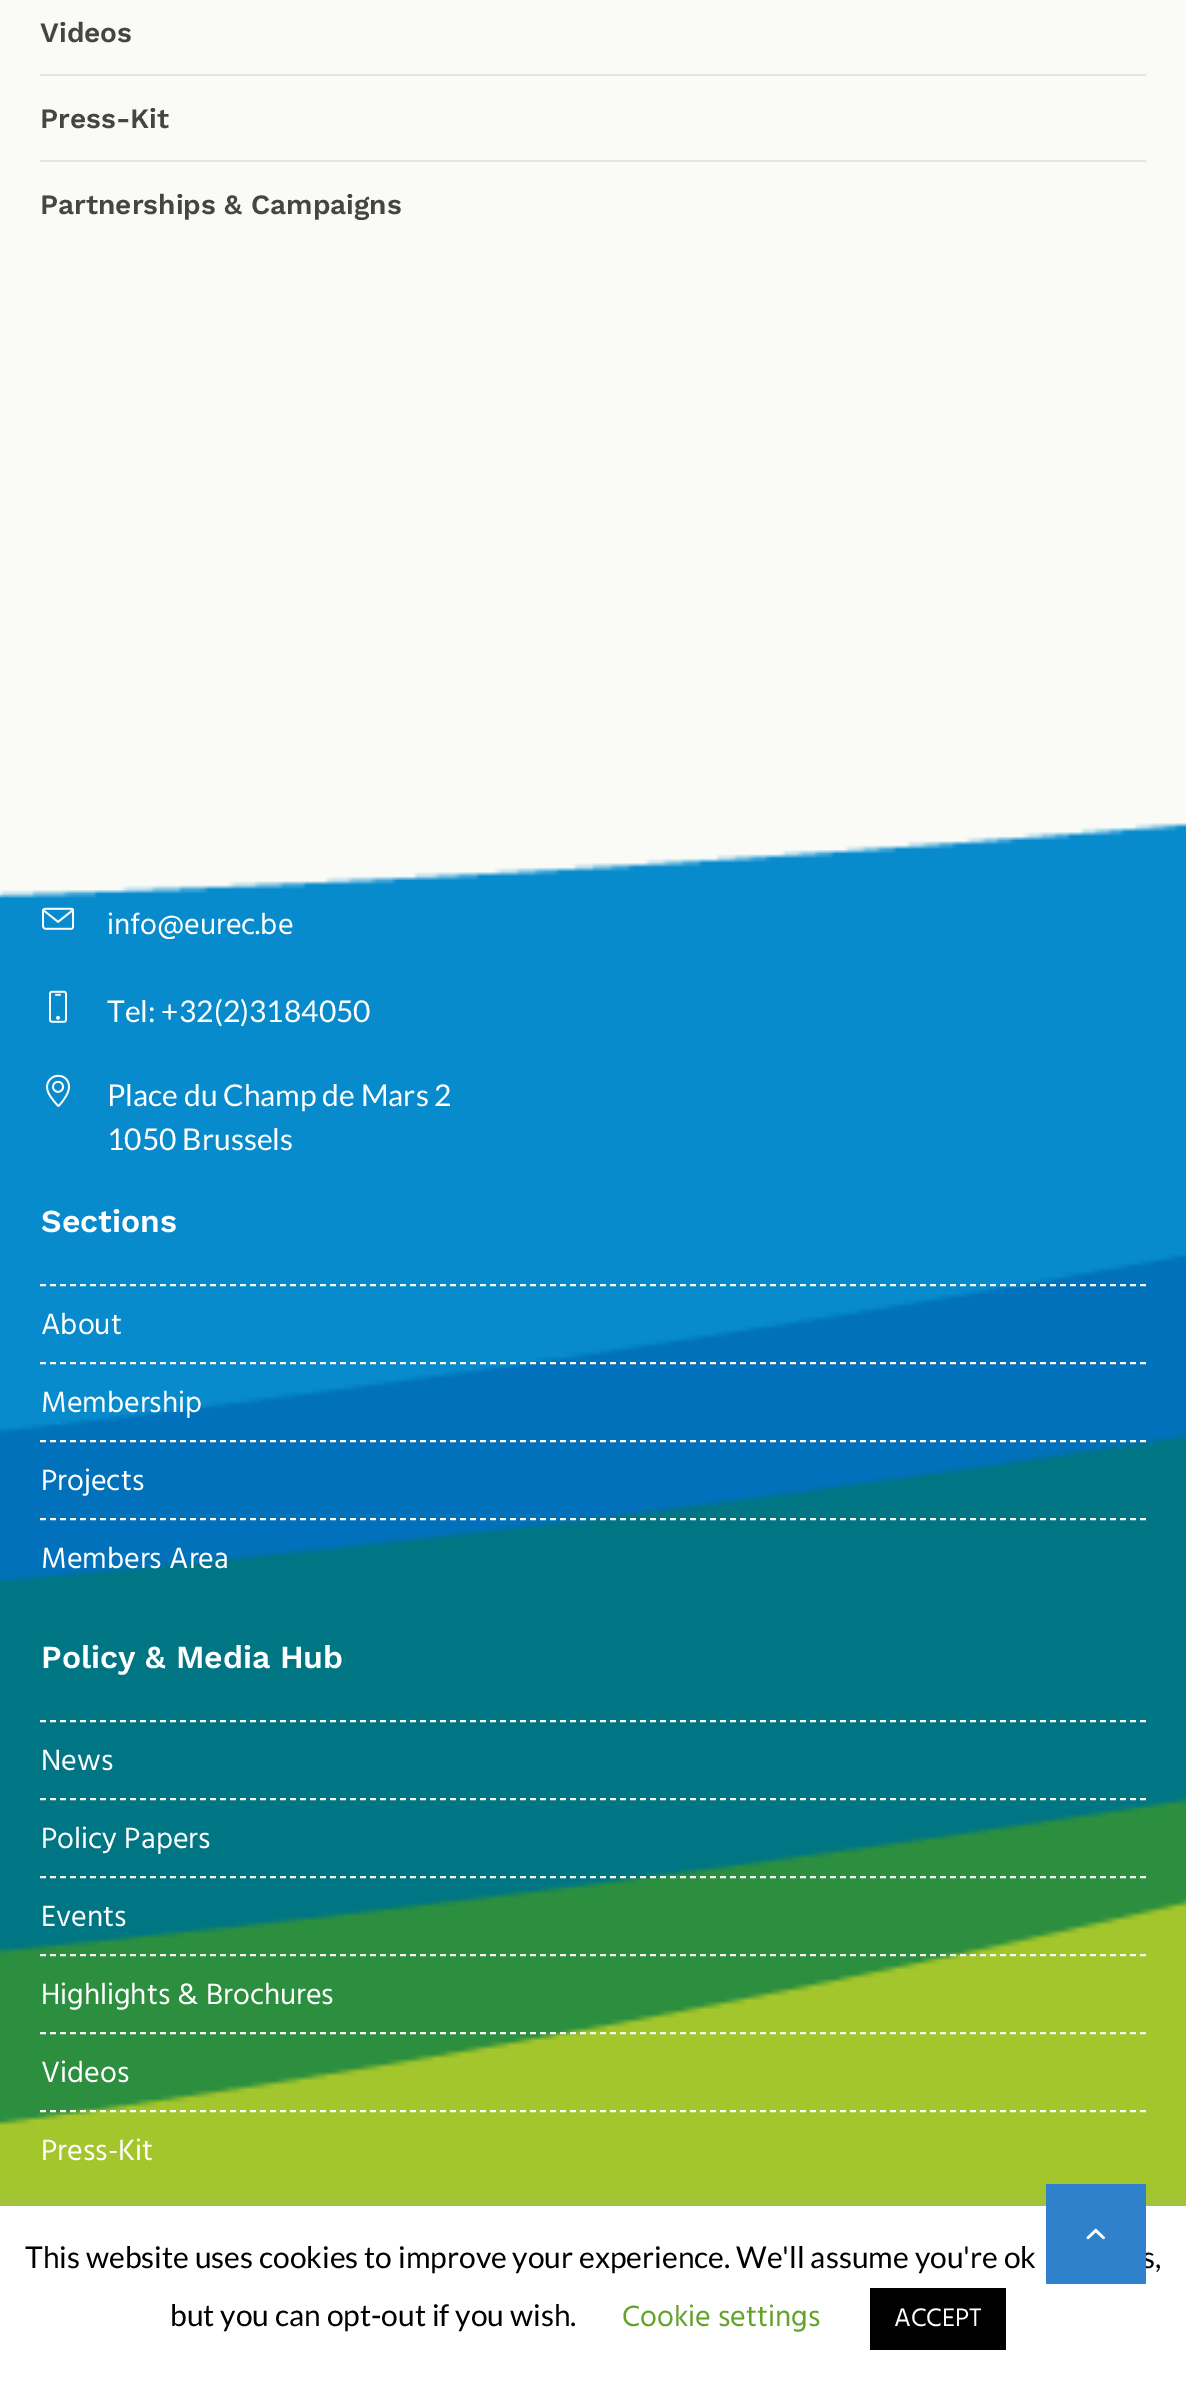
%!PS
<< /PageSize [1186 2383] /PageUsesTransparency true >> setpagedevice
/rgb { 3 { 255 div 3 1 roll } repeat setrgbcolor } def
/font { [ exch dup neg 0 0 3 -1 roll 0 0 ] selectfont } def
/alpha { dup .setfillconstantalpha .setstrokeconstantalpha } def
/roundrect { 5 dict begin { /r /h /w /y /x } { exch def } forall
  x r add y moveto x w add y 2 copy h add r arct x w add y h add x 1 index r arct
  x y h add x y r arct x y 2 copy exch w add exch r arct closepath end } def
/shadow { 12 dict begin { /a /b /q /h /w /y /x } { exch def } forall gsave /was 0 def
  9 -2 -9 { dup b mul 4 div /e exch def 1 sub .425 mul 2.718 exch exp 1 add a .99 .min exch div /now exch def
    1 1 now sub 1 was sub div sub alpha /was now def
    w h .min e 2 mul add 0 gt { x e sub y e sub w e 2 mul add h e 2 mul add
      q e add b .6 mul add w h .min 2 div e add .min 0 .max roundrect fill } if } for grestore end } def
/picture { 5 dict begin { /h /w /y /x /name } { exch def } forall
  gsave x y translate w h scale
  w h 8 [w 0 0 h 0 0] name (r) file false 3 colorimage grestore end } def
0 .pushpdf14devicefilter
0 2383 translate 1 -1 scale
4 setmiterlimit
250 251 246 rgb
0 0 1186 2383 rectfill
228 228 228 rgb
40 74 1106 2 rectfill
40 160 1106 2 rectfill
(img/1.rgb) 0 823 1186 1383 picture
(img/2.rgb) 42 907 33 23 picture
(img/3.rgb) 49 990 18 33 picture
(img/4.rgb) 46 1074 24 33 picture
250 251 246 rgb
2 setlinewidth
[6 4] 0 setdash
40 1285 moveto 1146 1285 lineto stroke
40 1363 moveto 1146 1363 lineto stroke
40 1441 moveto 1146 1441 lineto stroke
40 1519 moveto 1146 1519 lineto stroke
40 1721 moveto 1146 1721 lineto stroke
40 1799 moveto 1146 1799 lineto stroke
40 1877 moveto 1146 1877 lineto stroke
40 1955 moveto 1146 1955 lineto stroke
40 2033 moveto 1146 2033 lineto stroke
40 2111 moveto 1146 2111 lineto stroke
172 171 171 rgb
0 2204 1186 178 0 10 0.3 shadow
255 255 255 rgb
0 2206 1186 177 rectfill
0 0 0 rgb
870 2288 136 62 rectfill
/WorkSans-SemiBold 28 font
69 69 69 rgb
[
  [(Videos) 40 42]
  [(Press-Kit) 40 128]
  [(Partnerships & Campaigns) 40 214]
] { aload pop moveto show } forall
/Hind-Regular 30 font
255 255 255 rgb
107 934 moveto (info@eurec.be) show
/Lato-Regular 30 font
[
  [(Tel: +32\(2\)3184050) 107 1022]
  [(Place du Champ de Mars 2) 107 1106]
  [(1050 Brussels) 107 1150]
] { aload pop moveto show } forall
/WorkSans-SemiBold 32 font
41 1232 moveto (Sections) show
/Hind-Regular 30 font
[
  [(About) 41 1334]
  [(Membership) 41 1412]
  [(Projects) 41 1490]
  [(Members Area) 41 1568]
] { aload pop moveto show } forall
/WorkSans-SemiBold 32 font
41 1668 moveto (Policy & Media Hub) show
/Hind-Regular 30 font
[
  [(News) 41 1770]
  [(Policy Papers) 41 1848]
  [(Events) 41 1926]
  [(Highlights & Brochures) 41 2004]
  [(Videos) 41 2082]
  [(Press-Kit) 41 2160]
] { aload pop moveto show } forall
/Lato-Regular 30 font
0 0 0 rgb
25 2268 moveto (This website uses cookies to improve your experience. We'll assume you're ok) show
1142 2268 moveto (s,) show
46 129 202 rgb
1046 2184 100 100 rectfill
(img/5.rgb) 1086 2228 19 12 picture
0 0 0 rgb
170 2326 moveto (but you can opt-out if you wish.) show
/Hind-Regular 30 font
98 163 41 rgb
622 2326 moveto (Cookie settings) show
/Hind-Regular 26 font
255 255 255 rgb
894 2326 moveto (ACCEPT) show
.poppdf14devicefilter showpage
